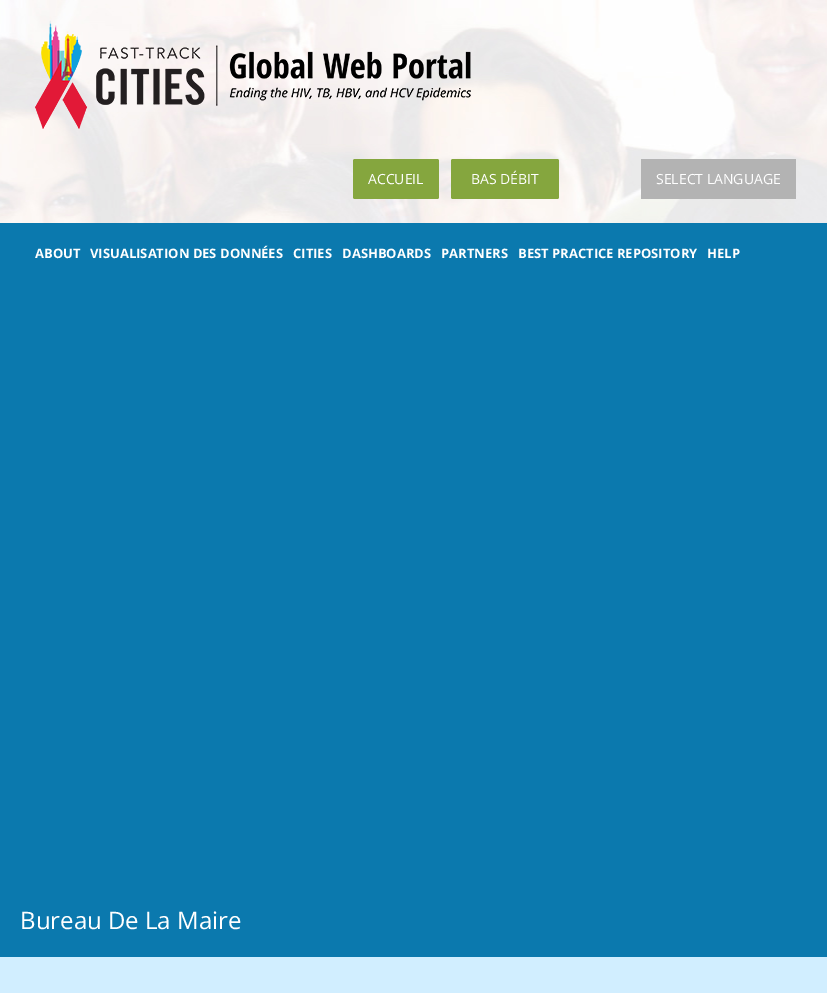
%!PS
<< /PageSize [827 993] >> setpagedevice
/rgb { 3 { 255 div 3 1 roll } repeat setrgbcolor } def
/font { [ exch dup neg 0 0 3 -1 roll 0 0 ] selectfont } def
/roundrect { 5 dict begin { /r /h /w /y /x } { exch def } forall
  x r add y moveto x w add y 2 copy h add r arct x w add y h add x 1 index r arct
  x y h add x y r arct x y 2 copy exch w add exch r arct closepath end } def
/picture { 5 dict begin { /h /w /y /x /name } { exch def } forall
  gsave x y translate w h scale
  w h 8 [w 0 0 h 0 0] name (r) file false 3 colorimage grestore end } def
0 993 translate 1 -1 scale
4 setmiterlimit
255 255 255 rgb
0 0 827 993 rectfill
(img/1.rgb) 0 0 827 223 picture
(img/2.rgb) 35 20 436 109 picture
133 166 62 rgb
353 159 86 40 2 roundrect fill
451 159 108 40 2 roundrect fill
[
  [641 159 155 40 179 179 179]
  [0 223 827 660 11 121 174]
  [0 883 827 74 11 121 174]
  [0 957 827 36 209 238 255]
] { aload pop rgb rectfill } forall
/OpenSans-Regular 14 font
255 255 255 rgb
[
  [(ACCUEIL) 368 184]
  [(BAS DÉBIT) 471 184]
  [(SELECT LANGUAGE) 656 184]
] { aload pop moveto show } forall
/OpenSans-Bold 13 font
[
  [(ABOUT) 35 258]
  [(VISUALISATION DES DONNÉES) 90 258]
  [(CITIES) 293 258]
  [(DASHBOARDS) 342 258]
  [(PARTNERS) 441 258]
  [(BEST PRACTICE REPOSITORY) 518 258]
  [(HELP) 707 258]
] { aload pop moveto show } forall
/OpenSans-Regular 24 font
20 929 moveto (Bureau De La Maire) show
showpage
